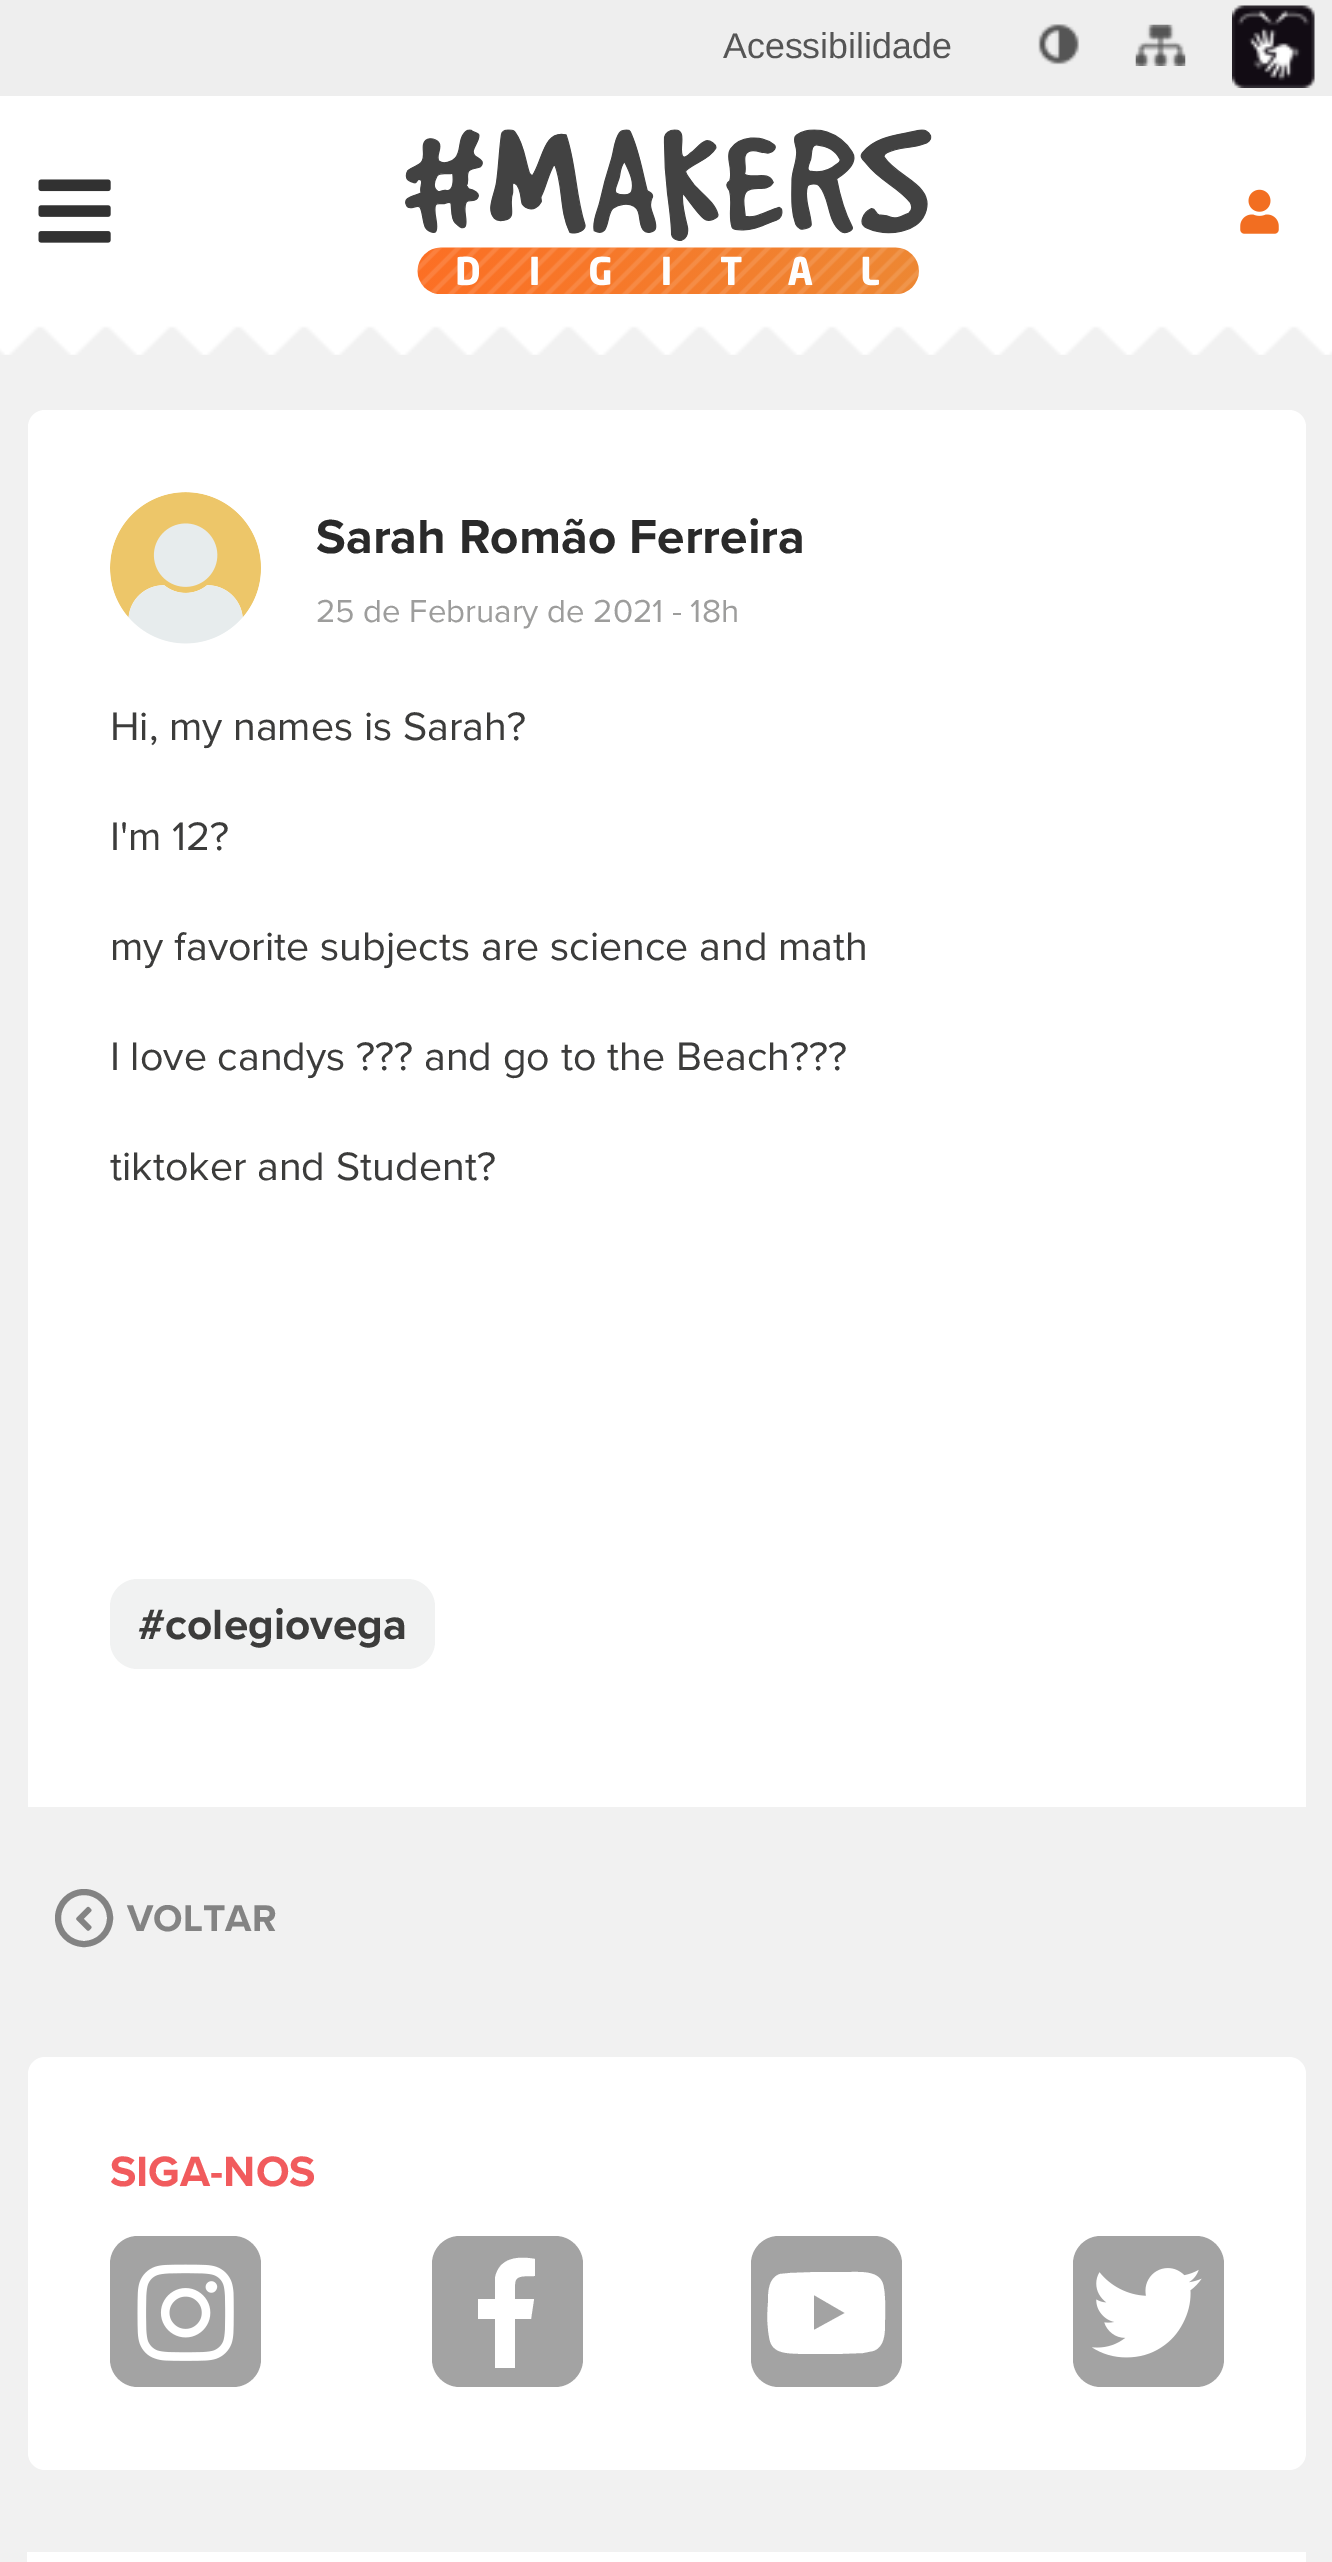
%!PS
<< /PageSize [1332 2562] >> setpagedevice
/rgb { 3 { 255 div 3 1 roll } repeat setrgbcolor } def
/font { [ exch dup neg 0 0 3 -1 roll 0 0 ] selectfont } def
/circle { newpath 0 360 arc closepath } def
/roundrect { 5 dict begin { /r /h /w /y /x } { exch def } forall
  x r add y moveto x w add y 2 copy h add r arct x w add y h add x 1 index r arct
  x y h add x y r arct x y 2 copy exch w add exch r arct closepath end } def
/picture { 5 dict begin { /h /w /y /x /name } { exch def } forall
  gsave x y translate w h scale
  w h 8 [w 0 0 h 0 0] name (r) file false 3 colorimage grestore end } def
0 2562 translate 1 -1 scale
4 setmiterlimit
241 241 241 rgb
0 0 1332 2562 rectfill
238 238 238 rgb
0 0 1332 96 rectfill
(img/1.rgb) 1038 24 41 41 picture
(img/2.rgb) 1135 24 51 42 picture
(img/3.rgb) 1232 5 83 83 picture
(img/4.rgb) 0 96 1332 259 picture
(img/5.rgb) 38 179 73 64 picture
(img/6.rgb) 405 129 527 165 picture
(img/7.rgb) 1240 189 39 45 picture
255 255 255 rgb
45 410 moveto 1289 410 lineto 1298.5 410 1306 417.5 1306 427 curveto 1306 1807 lineto 28 1807 lineto 28 427 lineto 28 417.5 35.5 410 45 410 curveto closepath fill
(img/8.rgb) 110 492 151 152 picture
241 242 242 rgb
110 1579 325 90 28 roundrect fill
131 131 131 rgb
6 setlinewidth
84 1918 26 circle stroke
(img/9.rgb) 76 1906 16 25 picture
255 255 255 rgb
28 2057 1278 413 17 roundrect fill
163 163 163 rgb
110 2236 151 151 28 roundrect fill
(img/10.rgb) 137 2264 97 97 picture
432 2236 151 151 28 roundrect fill
255 255 255 rgb
495 2368 moveto 495 2319 lineto 478 2319 lineto 478 2299 lineto 495 2299 lineto 495 2278 lineto 499 2257 519 2256 535 2259 curveto 535 2276 lineto 512 2276 515 2277 515 2299 curveto 534 2299 lineto 531 2319 lineto 515 2319 lineto 515 2368 lineto closepath fill
163 163 163 rgb
751 2236 151 151 28 roundrect fill
255 255 255 rgb
883 2284 moveto 879 2271 862 2272 851 2272 curveto 817 2272 lineto 790 2273 lineto 780 2274 lineto 768 2278 768 2293 768 2303 curveto 767 2316 767 2329 770 2341 curveto 774 2355 791 2353 802 2354 curveto 836 2354 lineto 863 2353 lineto 873 2351 lineto 885 2347 885 2332 885 2322 curveto 885 2309 886 2296 883 2284 curveto closepath 814 2330 moveto 814 2295 lineto 845 2313 lineto closepath fill
163 163 163 rgb
1073 2236 151 151 28 roundrect fill
(img/11.rgb) 1092 2268 110 90 picture
255 255 255 rgb
27 2552 1279 10 rectfill
/LiberationSans-Regular 35.75 font
85 85 85 rgb
723 58 moveto (Acessibilidade) show
/ProximaNova-Bold 49.5 font
42 42 42 rgb
316 553 moveto (Sarah Romão Ferreira) show
/ProximaNova-Regular 33 font
157 157 156 rgb
316 622 moveto (25 de February de 2021 - 18h) show
/ProximaNova-Regular 41.25 font
60 60 59 rgb
[
  [(Hi, my names is Sarah?) 110 740]
  [(I'm 12?) 110 850]
  [(my favorite subjects are science and math) 110 960]
  [(I love candys ??? and go to the Beach???) 110 1070]
  [(tiktoker and Student?) 110 1180]
] { aload pop moveto show } forall
/ProximaNova-Bold 44 font
138 1639 moveto (#colegiovega) show
/ProximaNova-Bold 38.5 font
131 131 131 rgb
127 1931 moveto (VOLTAR) show
/ProximaNova-Bold 44 font
241 91 93 rgb
110 2186 moveto (SIGA-NOS) show
showpage
